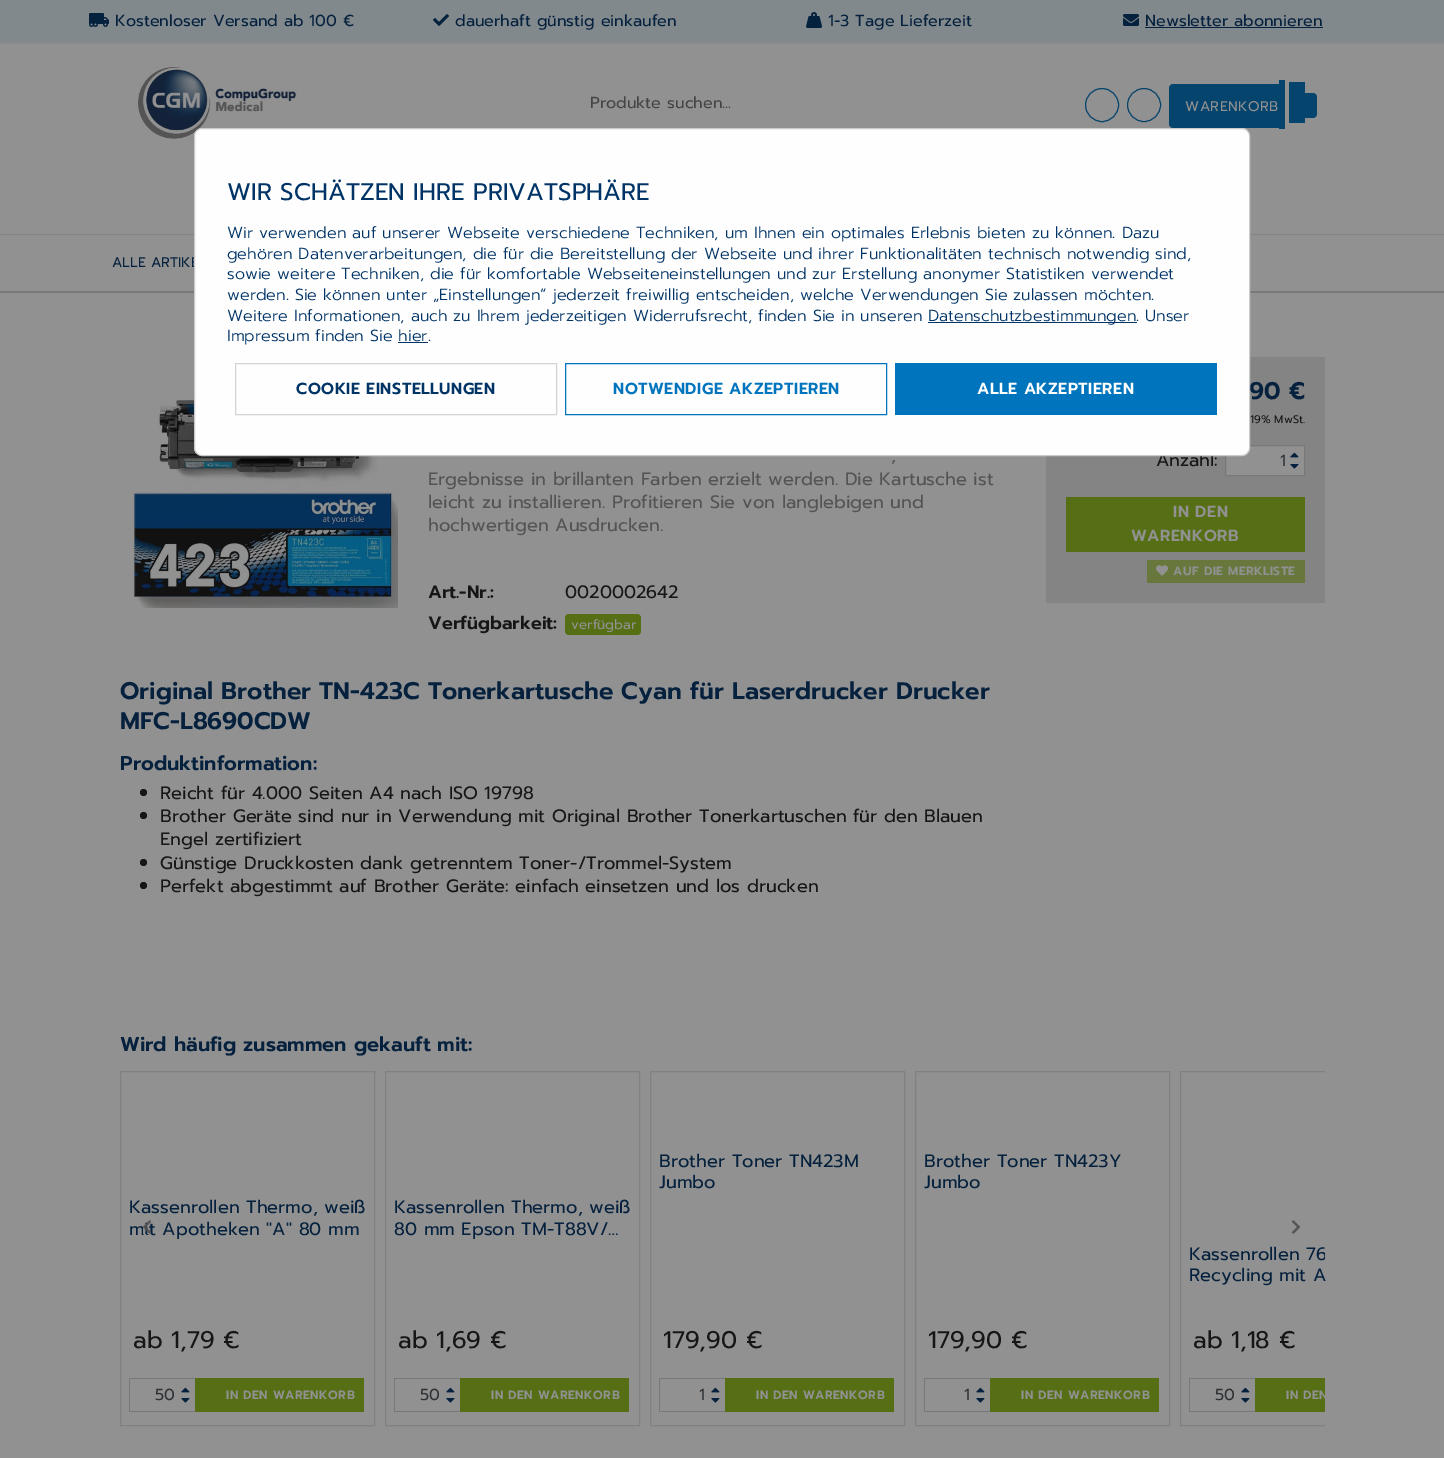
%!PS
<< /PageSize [1444 1458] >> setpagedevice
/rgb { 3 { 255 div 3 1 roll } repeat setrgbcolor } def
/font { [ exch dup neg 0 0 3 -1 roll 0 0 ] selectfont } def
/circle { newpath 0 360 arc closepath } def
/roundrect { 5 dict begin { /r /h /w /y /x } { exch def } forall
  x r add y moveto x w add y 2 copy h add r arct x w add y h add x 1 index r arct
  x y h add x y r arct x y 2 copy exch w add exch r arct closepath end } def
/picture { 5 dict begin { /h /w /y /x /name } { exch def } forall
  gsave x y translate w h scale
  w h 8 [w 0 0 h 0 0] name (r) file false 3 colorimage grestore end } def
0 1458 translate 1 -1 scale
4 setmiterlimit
145 145 145 rgb
0 0 1444 1458 rectfill
[
  [0 291 1444 2 121 121 121]
  [0 234 1444 1 132 132 132]
  [0 0 1444 43 130 137 141]
  [0 43 1444 1 139 139 139]
] { aload pop rgb rectfill } forall
(img/1.rgb) 89 13 20 14 picture
(img/2.rgb) 433 14 16 12 picture
(img/3.rgb) 806 12 16 16 picture
(img/4.rgb) 1123 14 16 12 picture
5 33 61 rgb
1145 27 178 1 rectfill
(img/5.rgb) 138 67 159 72 picture
5 68 108 rgb
1102 105 16.5 circle stroke
1144 105 16.5 circle stroke
1173 84 moveto 1279 84 lineto 1279 128 lineto 1173 128 lineto 1171 128 1169 126 1169 124 curveto 1169 88 lineto 1169 86 1171 84 1173 84 curveto closepath fill
1279 80 6 49 rectfill
1289 82 16 41 rectfill
1301 93 moveto 1313 93 lineto 1315 93 1317 95 1317 97 curveto 1317 114 lineto 1317 116 1315 118 1313 118 curveto 1301 118 lineto closepath fill
(img/6.rgb) 133 399 265 209 picture
86 111 20 rgb
565 614 76 21 4 roundrect fill
22 22 22 rgb
143.5 792.5 3.5 circle fill
143.5 815.5 3.5 circle fill
143.5 862.5 3.5 circle fill
143.5 885.5 3.5 circle fill
132 132 132 rgb
1046 357 279 246 rectfill
145 145 145 rgb
1225.5 445.5 moveto 1304.5 445.5 lineto 1304.5 475.5 lineto 1225.5 475.5 lineto closepath gsave fill grestore
118 121 124 rgb
stroke
(img/7.rgb) 1290 452 9 6 picture
(img/8.rgb) 1290 464 9 5 picture
86 111 20 rgb
1066 497 239 55 rectfill
104 120 61 rgb
1147 560 158 23 rectfill
(img/9.rgb) 1156 565 12 11 picture
129 129 129 rgb
120.5 1071.5 254 354 rectstroke
118 121 124 rgb
129 1378 68 1 rectfill
129 1411 68 1 rectfill
(img/7.rgb) 181 1387 9 6 picture
(img/8.rgb) 181 1398 9 5 picture
129 1378 1 34 rectfill
86 111 20 rgb
195 1378 169 34 rectfill
129 129 129 rgb
385.5 1071.5 254 354 rectstroke
118 121 124 rgb
394 1378 68 1 rectfill
394 1411 68 1 rectfill
(img/7.rgb) 446 1387 9 6 picture
(img/8.rgb) 446 1398 9 5 picture
394 1378 1 34 rectfill
86 111 20 rgb
460 1378 169 34 rectfill
129 129 129 rgb
650.5 1071.5 254 354 rectstroke
118 121 124 rgb
659 1378 68 1 rectfill
659 1411 68 1 rectfill
(img/7.rgb) 711 1387 9 6 picture
(img/8.rgb) 711 1398 9 5 picture
659 1378 1 34 rectfill
86 111 20 rgb
725 1378 169 34 rectfill
129 129 129 rgb
915.5 1071.5 254 354 rectstroke
118 121 124 rgb
924 1378 68 1 rectfill
924 1411 68 1 rectfill
(img/7.rgb) 976 1387 9 6 picture
(img/8.rgb) 976 1398 9 5 picture
924 1378 1 34 rectfill
86 111 20 rgb
990 1378 169 34 rectfill
gsave
120 1063 1205 371 rectclip
129 129 129 rgb
1180.5 1071.5 254 354 rectstroke
grestore
118 121 124 rgb
1189 1378 68 1 rectfill
1189 1411 68 1 rectfill
(img/7.rgb) 1241 1387 9 6 picture
(img/8.rgb) 1241 1398 9 5 picture
1189 1378 1 34 rectfill
86 111 20 rgb
1255 1378 70 34 rectfill
(img/11.rgb) 1291 1220 9 14 picture
/Prompt-Regular 16 font
5 33 61 rgb
[
  [(Kostenloser Versand ab 100 €) 115 26]
  [(dauerhaft günstig einkaufen) 455 26]
  [(1-3 Tage Lieferzeit) 828 26]
  [(Newsletter abonnieren) 1145 26]
] { aload pop moveto show } forall
69 69 69 rgb
590 108 moveto (Produkte suchen...) show
/Prompt-Regular 14 font
145 145 145 rgb
1185 111 moveto 0.5 0 (WARENKORB) ashow
5 33 61 rgb
112 267 moveto (ALLE ARTIKE) show
/Prompt-Regular 18 font
84 84 84 rgb
[
  [(,) 891 461]
  [(Ergebnisse in brillanten Farben erzielt werden. Die Kartusche ist) 428 485]
  [(leicht zu installieren. Profitieren Sie von langlebigen und) 428 508]
  [(hochwertigen Ausdrucken.) 428 531]
] { aload pop moveto show } forall
/Prompt-SemiBold 18 font
22 22 22 rgb
428 598 moveto (Art.-Nr.:) show
/Prompt-Regular 18 font
565 598 moveto (0020002642) show
/Prompt-SemiBold 18 font
428 629 moveto (Verfügbarkeit:) show
/Prompt-Regular 13.5 font
145 145 145 rgb
571 629 moveto (verfügbar) show
/Prompt-SemiBold 24 font
5 33 61 rgb
120 699 moveto (Original Brother TN-423C Tonerkartusche Cyan für Laserdrucker Drucker) show
120 729 moveto (MFC-L8690CDW) show
/Prompt-SemiBold 20 font
120 770 moveto (Produktinformation:) show
/Prompt-Regular 18 font
22 22 22 rgb
[
  [(Reicht für 4.000 Seiten A4 nach ISO 19798) 160 799]
  [(Brother Geräte sind nur in Verwendung mit Original Brother Tonerkartuschen für den Blauen) 160 822]
  [(Engel zertifiziert) 160 845]
  [(Günstige Druckkosten dank getrenntem Toner-/Trommel-System) 160 869]
  [(Perfekt abgestimmt auf Brother Geräte: einfach einsetzen und los drucken) 160 892]
] { aload pop moveto show } forall
/Prompt-SemiBold 24 font
5 33 61 rgb
1249 399 moveto (90 €) show
/Prompt-Regular 11 font
22 22 22 rgb
1250 423 moveto (19% MwSt.) show
/Prompt-Regular 18 font
1156 466 moveto (Anzahl:) show
254 254 254 rgb
194.5 128.5 1055 327 7.5 roundrect gsave fill grestore
202 202 202 rgb
stroke
0 116 188 rgb
895 363 322 52 rectfill
/Prompt-SemiBold 16 font
255 255 255 rgb
977 394 moveto 0.5 0 (ALLE AKZEPTIEREN) ashow
0 116 188 rgb
565.5 363.5 321 51 rectstroke
613 394 moveto 0.5 0 (NOTWENDIGE AKZEPTIEREN) ashow
211 211 211 rgb
235.5 363.5 321 51 rectstroke
0 51 102 rgb
296 394 moveto 0.5 0 (COOKIE EINSTELLUNGEN) ashow
398 342 30 1 rectfill
/Prompt-Light 16 font
227 341 moveto (Impressum finden Sie hier.) show
928 322 209 1 rectfill
[
  [(Datenschutzbestimmungen. Unser) 928 321]
  [(Weitere Informationen, auch zu Ihrem jederzeitigen Widerrufsrecht, finden Sie in unseren) 227 321]
  [(werden. Sie können unter „Einstellungen“ jederzeit freiwillig entscheiden, welche Verwendungen Sie zulassen möchten.) 227 300]
  [(sowie weitere Techniken, die für komfortable Webseiteneinstellungen und zur Erstellung anonymer Statistiken verwendet) 227 279]
  [(gehören Datenverarbeitungen, die für die Bereitstellung der Webseite und ihrer Funktionalitäten technisch notwendig sind,) 227 259]
  [(Wir verwenden auf unserer Webseite verschiedene Techniken, um Ihnen ein optimales Erlebnis bieten zu können. Dazu) 227 238]
] { aload pop moveto show } forall
/Prompt-Regular 24 font
227 200 moveto (WIR SCHÄTZEN IHRE PRIVATSPHÄRE) show
/Prompt-Regular 16 font
45 49 52 rgb
1280 466 moveto (1) show
/Prompt-SemiBold 16 font
145 145 145 rgb
1173 517 moveto 0.5 0 (IN DEN) ashow
1131 541 moveto 0.5 0 (WARENKORB) ashow
/Prompt-SemiBold 12 font
1173 575 moveto 0.5 0 (AUF DIE MERKLISTE) ashow
/Prompt-SemiBold 20 font
5 33 61 rgb
120 1051 moveto (Wird häufig zusammen gekauft mit:) show
/Prompt-Regular 18 font
129 1213 moveto (Kassenrollen Thermo, weiß) show
129 1235 moveto (mit Apotheken "A" 80 mm) show
/Prompt-Regular 24 font
22 22 22 rgb
133 1348 moveto (ab 1,79 €) show
/Prompt-Regular 16 font
45 49 52 rgb
155 1400 moveto (50) show
/Prompt-SemiBold 12 font
145 145 145 rgb
226 1399 moveto 0.5 0 (IN DEN WARENKORB) ashow
/Prompt-Regular 18 font
5 33 61 rgb
394 1213 moveto (Kassenrollen Thermo, weiß) show
394 1235 moveto (80 mm Epson TM-T88V/…) show
/Prompt-Regular 24 font
22 22 22 rgb
398 1348 moveto (ab 1,69 €) show
/Prompt-Regular 16 font
45 49 52 rgb
420 1400 moveto (50) show
/Prompt-SemiBold 12 font
145 145 145 rgb
491 1399 moveto 0.5 0 (IN DEN WARENKORB) ashow
/Prompt-Regular 18 font
5 33 61 rgb
659 1167 moveto (Brother Toner TN423M) show
659 1188 moveto (Jumbo) show
/Prompt-Regular 24 font
22 22 22 rgb
663 1348 moveto (179,90 €) show
/Prompt-Regular 16 font
45 49 52 rgb
699 1400 moveto (1) show
/Prompt-SemiBold 12 font
145 145 145 rgb
756 1399 moveto 0.5 0 (IN DEN WARENKORB) ashow
/Prompt-Regular 18 font
5 33 61 rgb
924 1167 moveto (Brother Toner TN423Y) show
924 1188 moveto (Jumbo) show
/Prompt-Regular 24 font
22 22 22 rgb
928 1348 moveto (179,90 €) show
/Prompt-Regular 16 font
45 49 52 rgb
964 1400 moveto (1) show
/Prompt-SemiBold 12 font
145 145 145 rgb
1021 1399 moveto 0.5 0 (IN DEN WARENKORB) ashow
gsave
1189 1244 136 43 rectclip
/Prompt-Regular 18 font
5 33 61 rgb
1189 1260 moveto (Kassenrollen 76) show
grestore
/Prompt-Regular 18 font
5 33 61 rgb
1189 1281 moveto (Recycling mit A) show
/Prompt-Regular 24 font
22 22 22 rgb
1193 1348 moveto (ab 1,18 €) show
/Prompt-Regular 16 font
45 49 52 rgb
1215 1400 moveto (50) show
gsave
120 1063 1205 371 rectclip
/Prompt-SemiBold 12 font
145 145 145 rgb
1286 1399 moveto 0.5 0 (IN DEN) ashow
grestore
(img/10.rgb) 143 1220 9 14 picture
showpage
